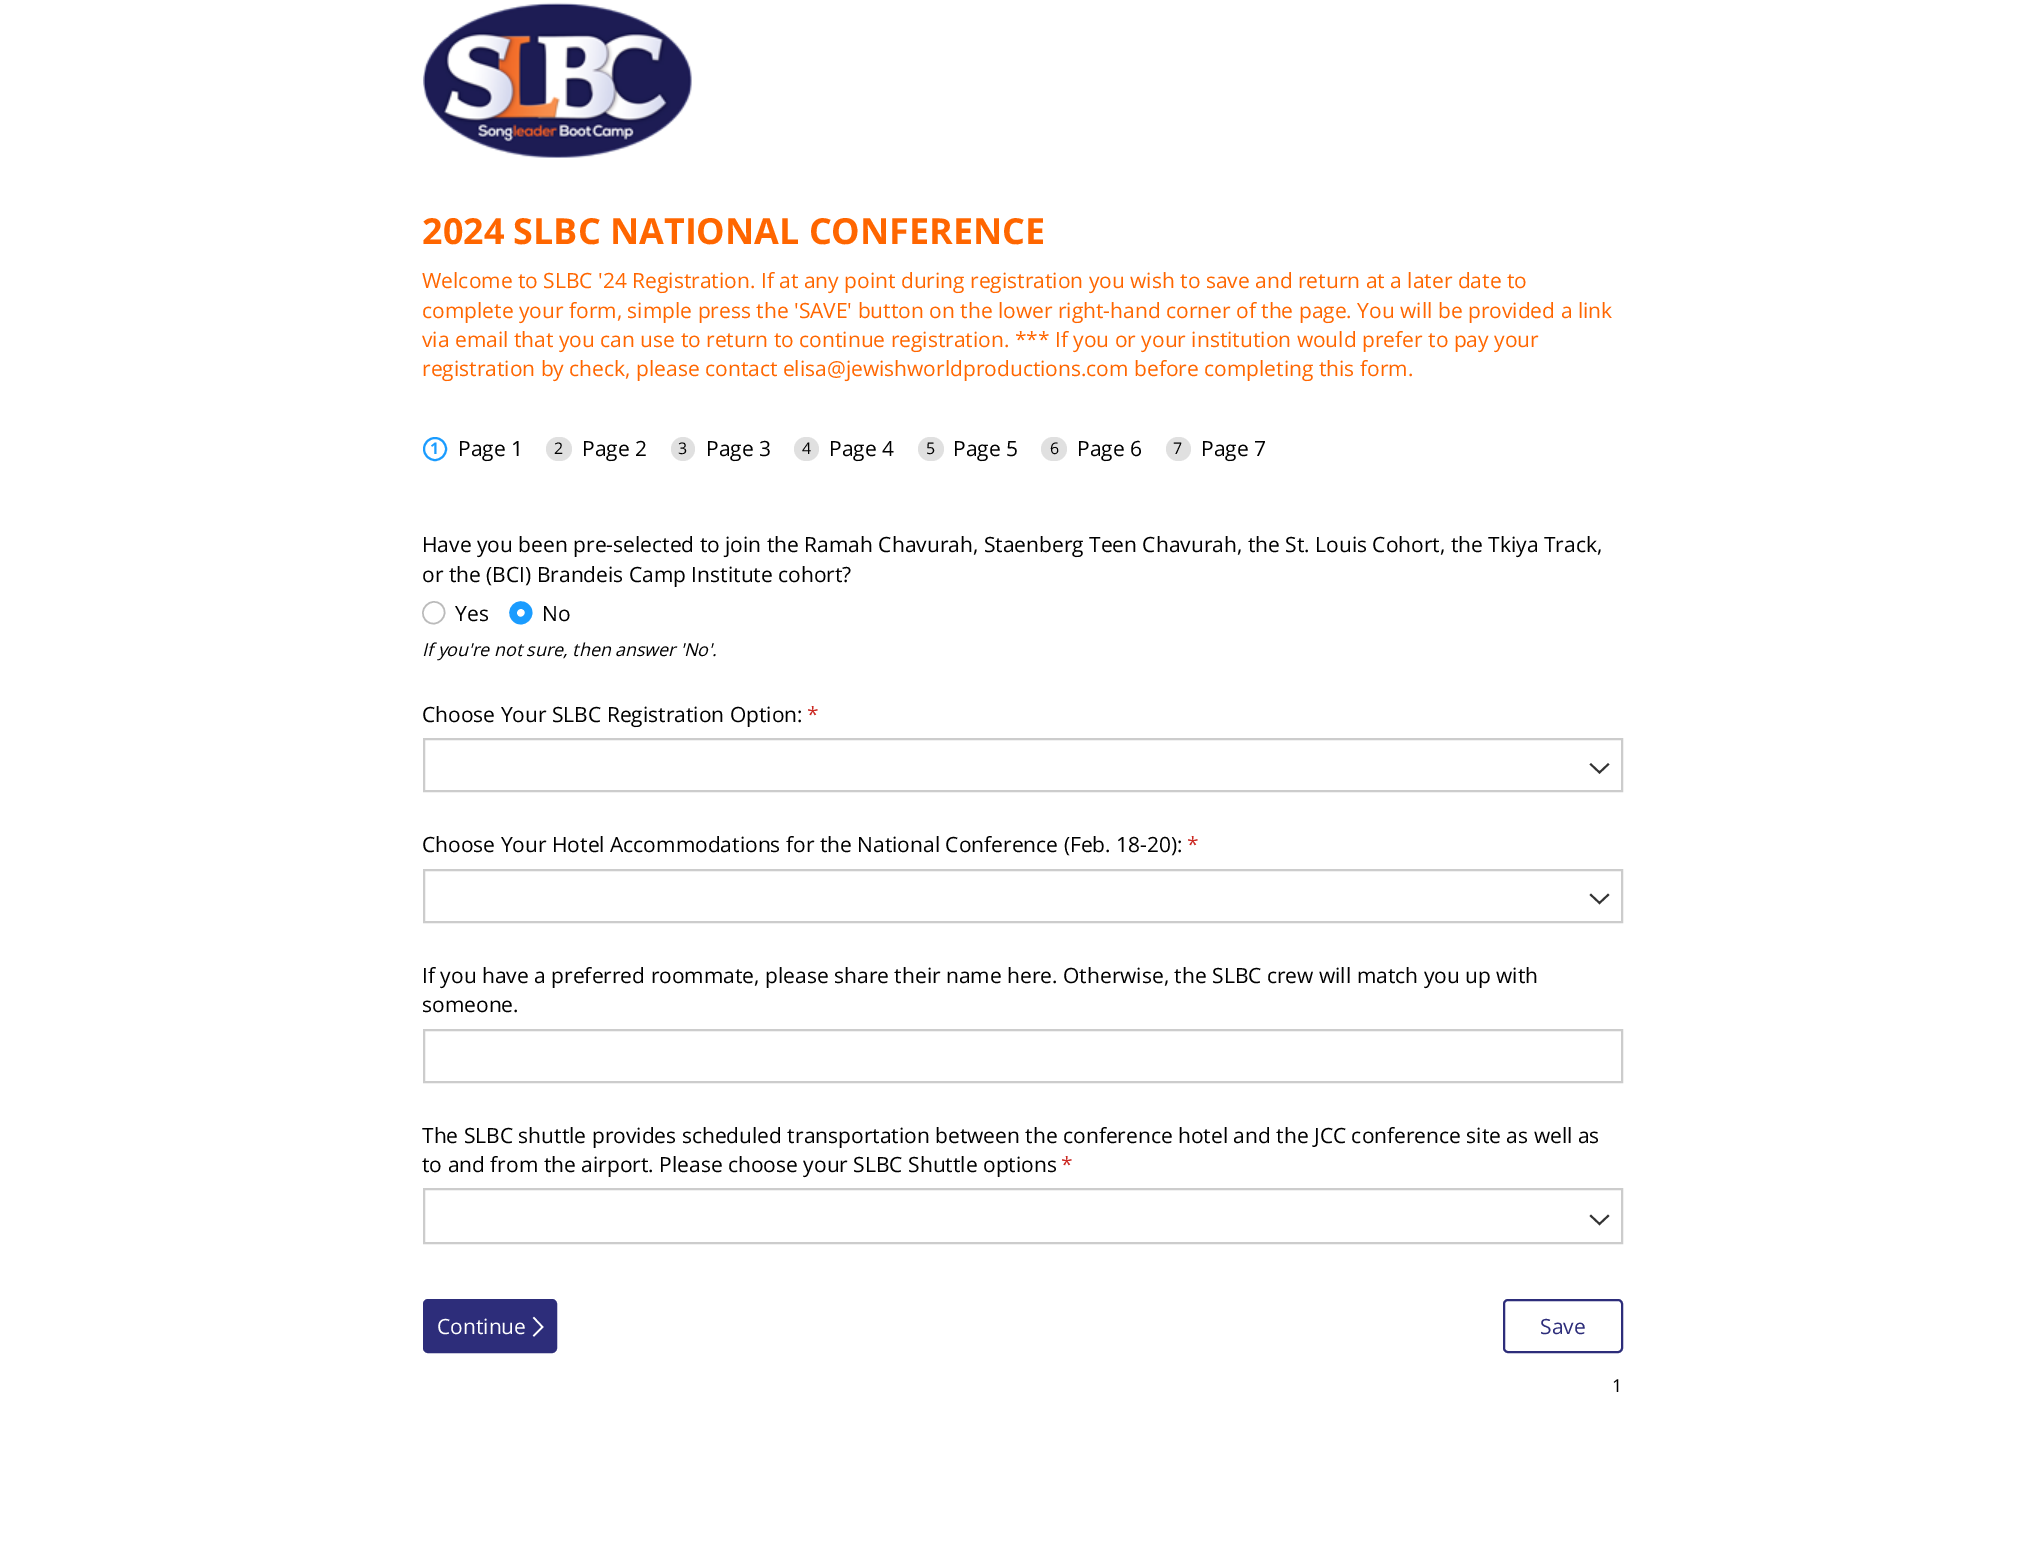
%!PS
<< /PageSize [2044 1553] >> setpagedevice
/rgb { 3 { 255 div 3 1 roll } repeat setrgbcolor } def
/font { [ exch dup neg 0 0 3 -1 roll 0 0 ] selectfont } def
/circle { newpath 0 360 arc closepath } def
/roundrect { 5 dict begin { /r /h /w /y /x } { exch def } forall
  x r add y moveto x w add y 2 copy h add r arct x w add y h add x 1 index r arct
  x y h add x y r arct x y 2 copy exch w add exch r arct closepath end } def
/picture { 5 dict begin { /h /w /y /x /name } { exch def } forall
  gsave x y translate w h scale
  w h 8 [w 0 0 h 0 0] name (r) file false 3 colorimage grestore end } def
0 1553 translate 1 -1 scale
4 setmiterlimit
255 255 255 rgb
0 0 2044 1553 rectfill
(img/1.rgb) 423 2 269 156 picture
26 156 255 rgb
2 setlinewidth
435 449 11 circle stroke
224 224 224 rgb
546 437 26 24 12 roundrect fill
683 449 12 circle fill
794 437 25 24 12 roundrect fill
918 437 26 24 12 roundrect fill
1041 437 26 24 12 roundrect fill
1166 437 25 24 12 roundrect fill
187 187 187 rgb
1.5 setlinewidth
441.5 605 moveto 451.5 615 436 630.5 426 620.5 curveto 416 610.5 431.5 595 441.5 605 curveto closepath stroke
26 156 255 rgb
7.4 setlinewidth
526.5 607.5 moveto 533.5 614.5 522.5 625.5 515.5 618.5 curveto 508 611 519 600 526.5 607.5 curveto closepath stroke
204 204 204 rgb
2 setlinewidth
424 739 1198 52 rectstroke
51 51 51 rgb
1.9 setlinewidth
2 setlinecap
1591 764.5 moveto 1599.5 772.5 lineto 1608 764.5 lineto stroke
204 204 204 rgb
2 setlinewidth
0 setlinecap
424 870 1198 52 rectstroke
51 51 51 rgb
1.9 setlinewidth
2 setlinecap
1591 895 moveto 1599.5 903 lineto 1608 895 lineto stroke
204 204 204 rgb
2 setlinewidth
0 setlinecap
424 1030 1198 52 rectstroke
424 1189 1198 54 rectstroke
51 51 51 rgb
1.9 setlinewidth
2 setlinecap
1591 1216 moveto 1599.5 1224 lineto 1608 1216 lineto stroke
45 45 122 rgb
424 1300 132 52 4 roundrect gsave fill grestore
2 setlinewidth
0 setlinecap
stroke
255 255 255 rgb
1.6 setlinewidth
2 setlinecap
534 1335.5 moveto 542.5 1327 lineto 534 1318 lineto stroke
45 45 122 rgb
2 setlinewidth
0 setlinecap
1504 1300 118 52 4 roundrect stroke
/OpenSans-Bold 35.9 font
255 102 0 rgb
422 244 moveto (2024 SLBC NATIONAL CONFERENCE) show
/OpenSans-Regular 21 font
[
  [(Welcome to SLBC '24 Registration. If at any point during registration you wish to save and return at a later date to) 422 288]
  [(complete your form, simple press the 'SAVE' button on the lower right-hand corner of the page. You will be provided a link) 422 318]
  [(via email that you can use to return to continue registration. *** If you or your institution would prefer to pay your) 422 347]
  [(registration by check, please contact elisa@jewishworldproductions.com before completing this form.) 422 376]
] { aload pop moveto show } forall
/OpenSans-Bold 16 font
26 156 255 rgb
430 454 moveto (1) show
/OpenSans-Regular 21 font
0 0 0 rgb
458 456 moveto (Page 1) show
/OpenSans-Regular 16 font
554 454 moveto (2) show
/OpenSans-Regular 21 font
582 456 moveto (Page 2) show
/OpenSans-Regular 16 font
678 454 moveto (3) show
/OpenSans-Regular 21 font
706 456 moveto (Page 3) show
/OpenSans-Regular 16 font
802 454 moveto (4) show
/OpenSans-Regular 21 font
829 456 moveto (Page 4) show
/OpenSans-Regular 16 font
926 454 moveto (5) show
/OpenSans-Regular 21 font
953 456 moveto (Page 5) show
/OpenSans-Regular 16 font
1050 454 moveto (6) show
/OpenSans-Regular 21 font
1077 456 moveto (Page 6) show
/OpenSans-Regular 16 font
1173 454 moveto (7) show
/OpenSans-Regular 21 font
[
  [(Page 7) 1201 456]
  [(Have you been pre-selected to join the Ramah Chavurah, Staenberg Teen Chavurah, the St. Louis Cohort, the Tkiya Track,) 422 552]
  [(or the \(BCI\) Brandeis Camp Institute cohort?) 422 582]
  [(Yes) 455 621]
  [(No) 542 621]
] { aload pop moveto show } forall
/OpenSans-Italic 17.8 font
422 656 moveto (If you're not sure, then answer 'No'.) show
/OpenSans-Regular 21 font
422 722 moveto (Choose Your SLBC Registration Option:) show
204 42 36 rgb
807 722 moveto (*) show
0 0 0 rgb
422 852 moveto (Choose Your Hotel Accommodations for the National Conference \(Feb. 18-20\):) show
204 42 36 rgb
1187 852 moveto (*) show
0 0 0 rgb
[
  [(If you have a preferred roommate, please share their name here. Otherwise, the SLBC crew will match you up with) 422 983]
  [(someone.) 422 1012]
  [(The SLBC shuttle provides scheduled transportation between the conference hotel and the JCC conference site as well as) 422 1143]
  [(to and from the airport. Please choose your SLBC Shuttle options) 422 1172]
] { aload pop moveto show } forall
204 42 36 rgb
1061 1172 moveto (*) show
255 255 255 rgb
437 1334 moveto (Continue) show
45 45 122 rgb
1540 1334 moveto (Save) show
/OpenSans-Regular 17.8 font
0 0 0 rgb
1612 1392 moveto (1) show
showpage
